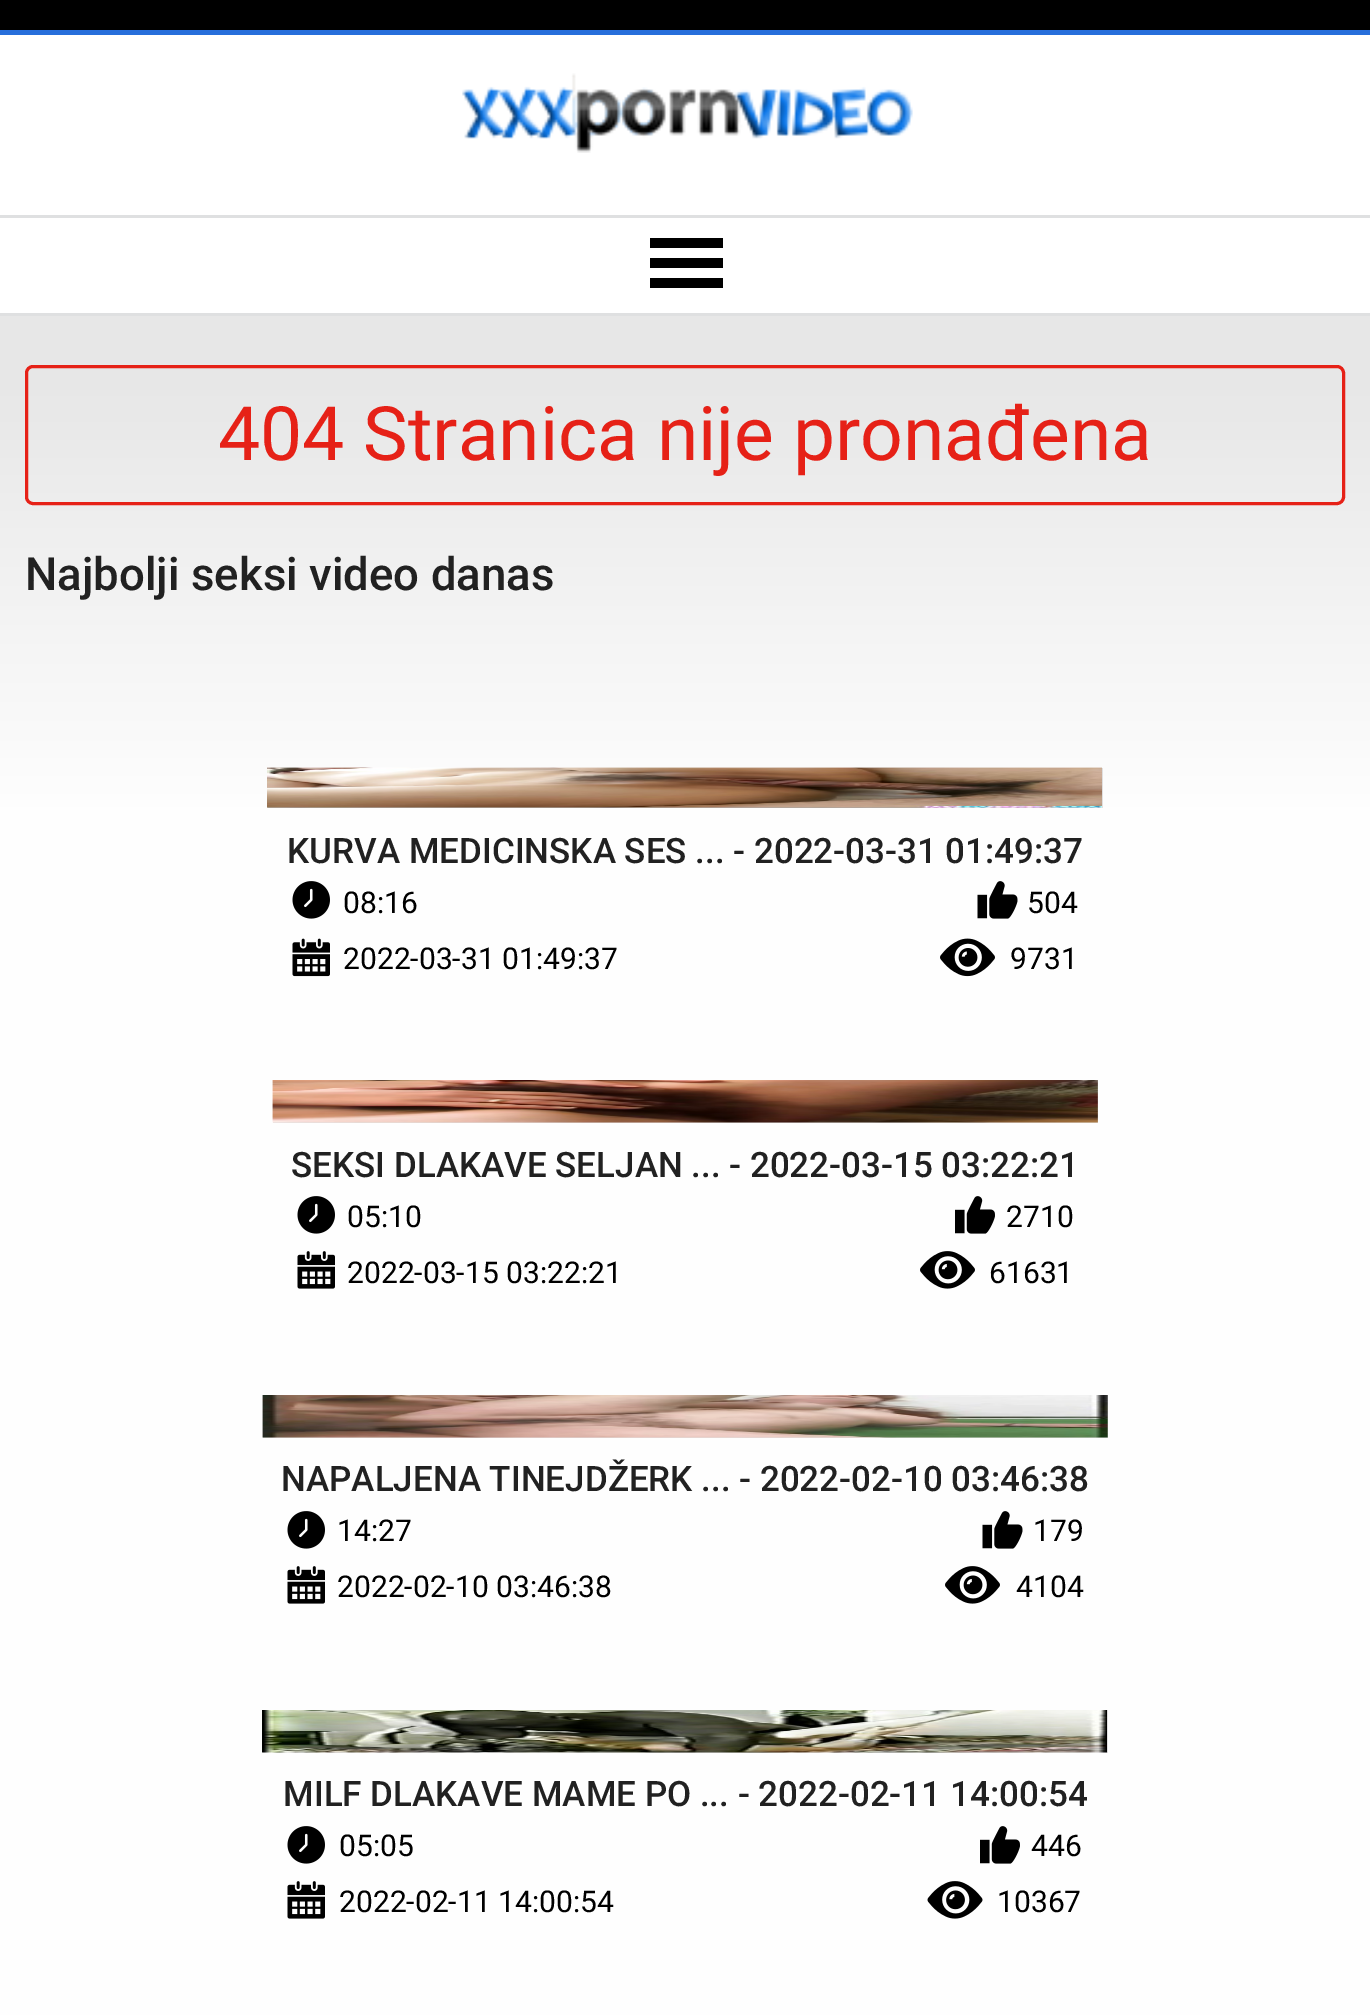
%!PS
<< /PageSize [1370 2015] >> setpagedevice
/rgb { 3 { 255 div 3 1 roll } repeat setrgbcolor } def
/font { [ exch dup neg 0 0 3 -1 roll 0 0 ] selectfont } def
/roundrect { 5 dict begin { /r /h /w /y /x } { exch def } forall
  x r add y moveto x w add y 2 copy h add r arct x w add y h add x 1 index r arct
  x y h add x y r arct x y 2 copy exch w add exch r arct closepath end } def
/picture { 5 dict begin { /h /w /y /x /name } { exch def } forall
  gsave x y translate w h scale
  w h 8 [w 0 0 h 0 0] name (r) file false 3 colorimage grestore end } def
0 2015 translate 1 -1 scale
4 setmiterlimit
0 0 0 rgb
0 0 1370 2015 rectfill
39 111 219 rgb
0 30 1370 5 rectfill
gsave 0 316 moveto 1370 316 lineto 1370 2015 lineto 0 2015 lineto closepath clip newpath
<< /ShadingType 2 /ColorSpace /DeviceRGB /Coords [685 35 685 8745] /Extend [true true] /Function << /FunctionType 3 /Domain [0 1] /Functions [<< /FunctionType 2 /Domain [0 1] /C0 [0.906 0.906 0.906] /C1 [0.906 0.906 0.906] /N 1 >> << /FunctionType 2 /Domain [0 1] /C0 [0.906 0.906 0.906] /C1 [0.996 0.996 0.996] /N 1 >> << /FunctionType 2 /Domain [0 1] /C0 [0.996 0.996 0.996] /C1 [0.996 0.996 0.996] /N 1 >>] /Bounds [0.04 0.09] /Encode [0 1 0 1 0 1] >> >> shfill grestore
255 255 255 rgb
0 35 1370 180 rectfill
(img/1.rgb) 462 73 451 80 picture
[
  [0 218 1370 95 255 255 255]
  [0 215 1370 3 223 224 225]
  [0 313 1370 3 223 224 225]
  [650 238 73 10 0 0 0]
  [650 258 73 10 0 0 0]
  [650 278 73 10 0 0 0]
] { aload pop rgb rectfill } forall
230 33 23 rgb
3 setlinewidth
26.5 366.5 1317 137 6.5 roundrect stroke
224 223 223 rgb
268 768 835 40 rectfill
(img/2.rgb) 267 767 835 41 picture
(img/3.rgb) 292 881 38 38 picture
(img/4.rgb) 977 881 41 38 picture
(img/5.rgb) 292 938 38 39 picture
(img/6.rgb) 940 938 55 39 picture
273 1080 825 43 rectfill
(img/7.rgb) 272 1080 826 43 picture
(img/3.rgb) 297 1196 38 38 picture
(img/8.rgb) 955 1196 40 38 picture
(img/9.rgb) 297 1251 38 38 picture
(img/10.rgb) 920 1251 55 38 picture
263 1395 845 43 rectfill
(img/11.rgb) 262 1395 846 43 picture
(img/3.rgb) 287 1511 38 38 picture
(img/4.rgb) 982 1511 41 38 picture
(img/9.rgb) 287 1566 38 38 picture
(img/10.rgb) 945 1566 55 38 picture
263 1710 845 43 rectfill
(img/12.rgb) 262 1710 845 43 picture
(img/3.rgb) 287 1826 38 38 picture
(img/8.rgb) 980 1826 40 38 picture
(img/9.rgb) 287 1881 38 38 picture
(img/13.rgb) 927 1881 56 38 picture
/Roboto-Regular 75 font
230 33 23 rgb
218 460 moveto (404 Stranica nije pronađena) show
/Roboto-Medium 45.6 font
33 33 33 rgb
25 590 moveto (Najbolji seksi video danas) show
/Roboto-Medium 35 font
287 863 moveto (KURVA MEDICINSKA SES ... - 2022-03-31 01:49:37) show
/Roboto-Regular 30 font
0 0 0 rgb
[
  [(08:16) 343 913]
  [(504) 1027 913]
  [(2022-03-31 01:49:37) 343 969]
  [(9731) 1010 969]
] { aload pop moveto show } forall
/Roboto-Medium 35 font
33 33 33 rgb
291 1177 moveto (SEKSI DLAKAVE SELJAN ... - 2022-03-15 03:22:21) show
/Roboto-Regular 30 font
0 0 0 rgb
[
  [(05:10) 347 1227]
  [(2710) 1006 1227]
  [(2022-03-15 03:22:21) 347 1283]
  [(61631) 989 1283]
] { aload pop moveto show } forall
/Roboto-Medium 35 font
33 33 33 rgb
281 1491 moveto (NAPALJENA TINEJDŽERK ... - 2022-02-10 03:46:38) show
/Roboto-Regular 30 font
0 0 0 rgb
[
  [(14:27) 337 1541]
  [(179) 1033 1541]
  [(2022-02-10 03:46:38) 337 1597]
  [(4104) 1016 1597]
] { aload pop moveto show } forall
/Roboto-Medium 35 font
33 33 33 rgb
283 1806 moveto (MILF DLAKAVE MAME PO ... - 2022-02-11 14:00:54) show
/Roboto-Regular 30 font
0 0 0 rgb
[
  [(05:05) 339 1856]
  [(446) 1031 1856]
  [(2022-02-11 14:00:54) 339 1912]
  [(10367) 997 1912]
] { aload pop moveto show } forall
showpage
